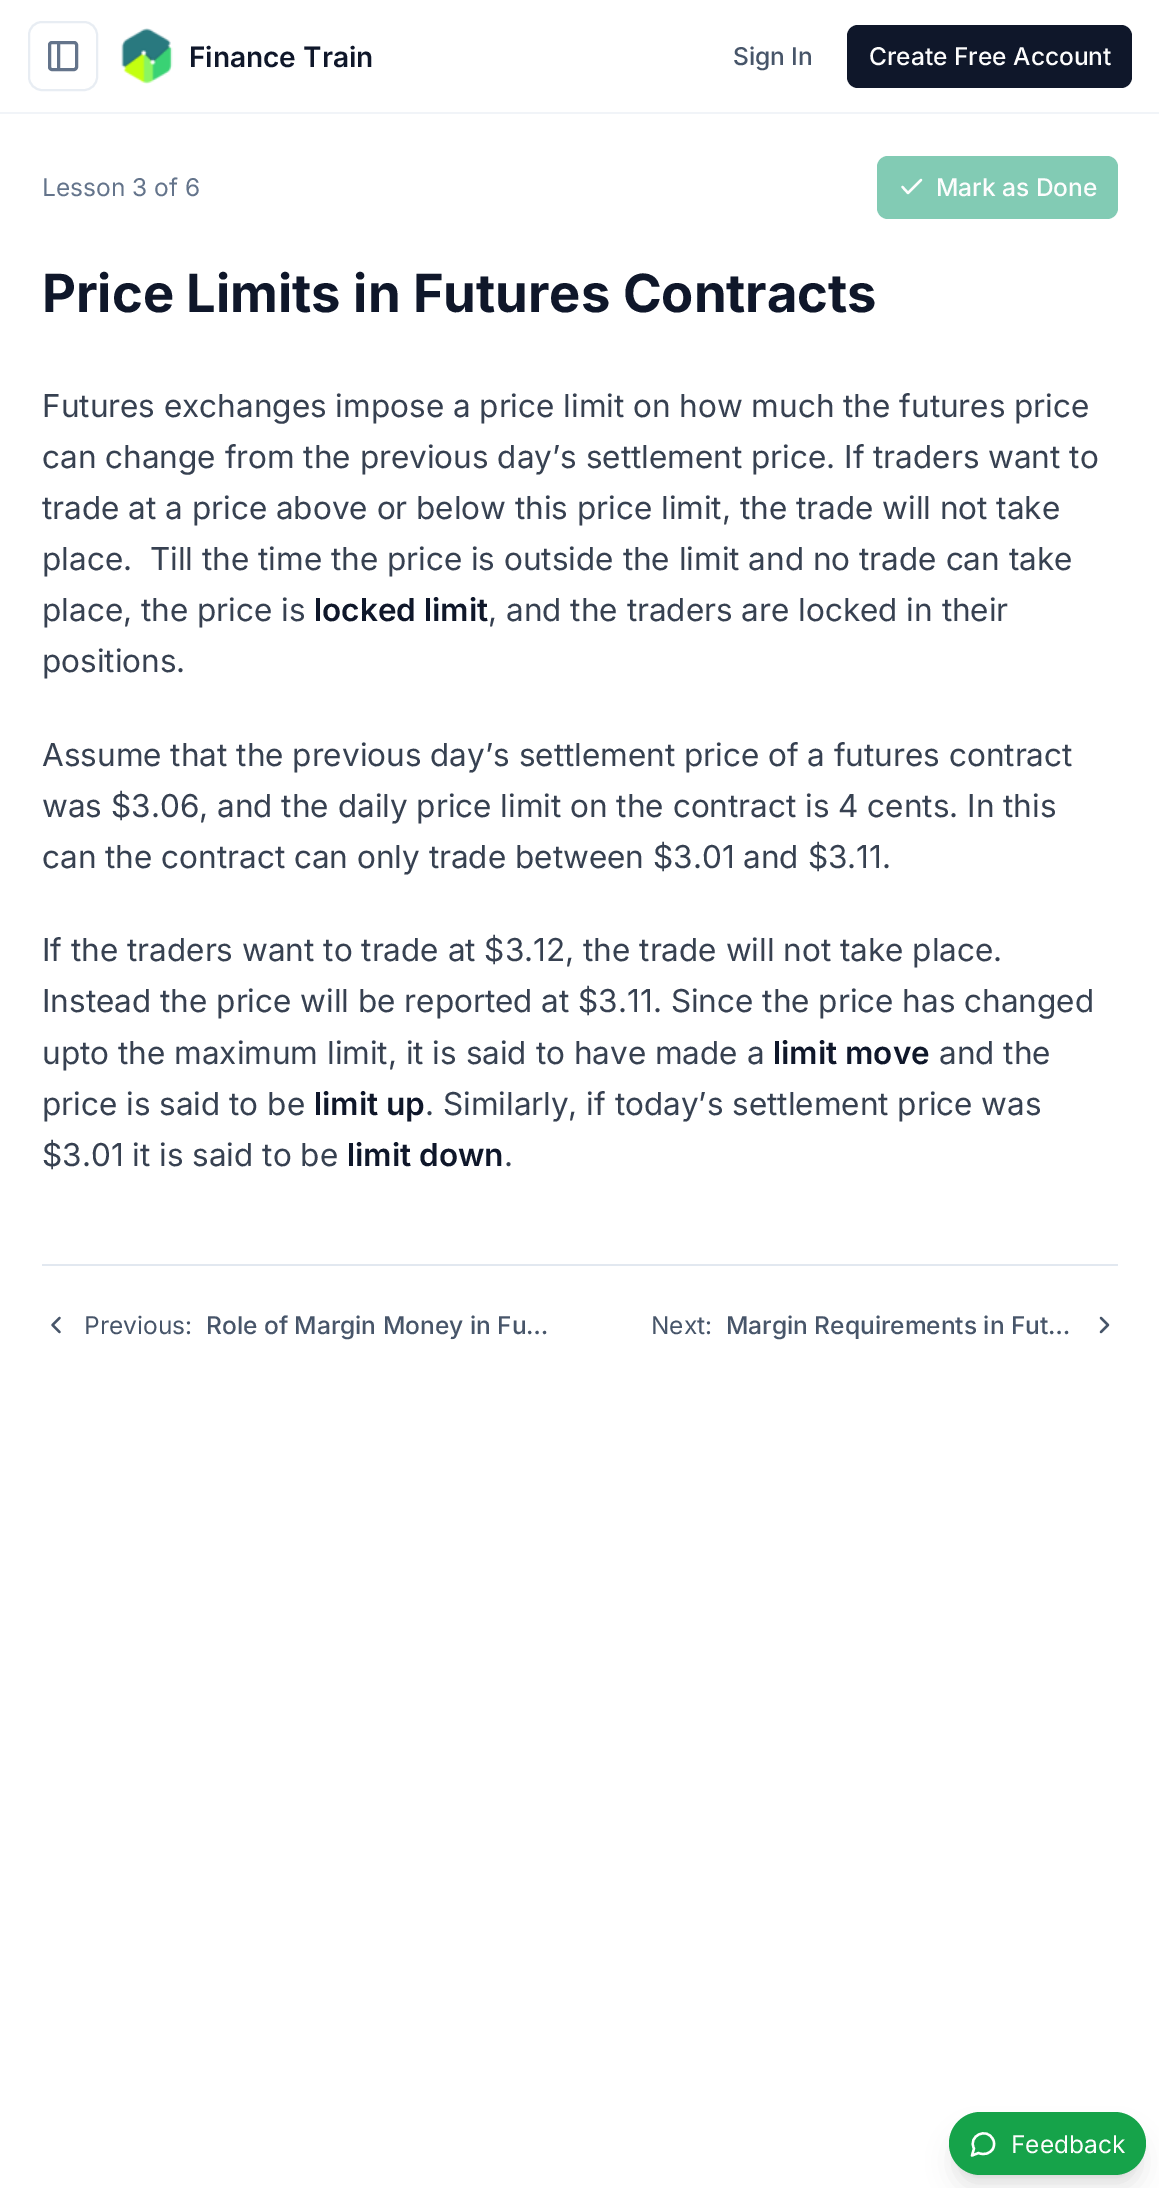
%!PS
<< /PageSize [1159 2188] /PageUsesTransparency true >> setpagedevice
/rgb { 3 { 255 div 3 1 roll } repeat setrgbcolor } def
/font { [ exch dup neg 0 0 3 -1 roll 0 0 ] selectfont } def
/alpha { dup .setfillconstantalpha .setstrokeconstantalpha } def
/roundrect { 5 dict begin { /r /h /w /y /x } { exch def } forall
  x r add y moveto x w add y 2 copy h add r arct x w add y h add x 1 index r arct
  x y h add x y r arct x y 2 copy exch w add exch r arct closepath end } def
/shadow { 12 dict begin { /a /b /q /h /w /y /x } { exch def } forall gsave /was 0 def
  9 -2 -9 { dup b mul 4 div /e exch def 1 sub .425 mul 2.718 exch exp 1 add a .99 .min exch div /now exch def
    1 1 now sub 1 was sub div sub alpha /was now def
    w h .min e 2 mul add 0 gt { x e sub y e sub w e 2 mul add h e 2 mul add
      q e add b .6 mul add w h .min 2 div e add .min 0 .max roundrect fill } if } for grestore end } def
/picture { 5 dict begin { /h /w /y /x /name } { exch def } forall
  gsave x y translate w h scale
  w h 8 [w 0 0 h 0 0] name (r) file false 3 colorimage grestore end } def
0 .pushpdf14devicefilter
0 2188 translate 1 -1 scale
4 setmiterlimit
255 255 255 rgb
0 0 1159 2188 rectfill
241 244 248 rgb
0 112 1159 2 rectfill
232 237 243 rgb
2 setlinewidth
29 22 68 68 13 roundrect stroke
100 116 139 rgb
3 setlinewidth
49.5 42.5 27 27 2.5 roundrect stroke
2.9 setlinewidth
1 setlinecap
1 setlinejoin
58.5 43 moveto 58.5 69 lineto stroke
(img/1.rgb) 121 28 52 56 picture
15 23 42 rgb
847 25 285 63 11 roundrect fill
130 203 180 rgb
877 156 241 63 11 roundrect fill
253 253 253 rgb
2.3 setlinewidth
921 180 moveto 908 193 lineto 902.5 187 lineto stroke
226 232 240 rgb
42 1264 1076 2 rectfill
71 85 105 rgb
59.5 1332 moveto 52.5 1325 lineto 59.5 1318 lineto stroke
1101 1332 moveto 1108 1325 lineto 1101 1318 lineto stroke
0 0 0 rgb
956 2126 183 49 24.5 5 0.1 shadow
954 2135 187 53 26.5 13 0.1 shadow
22 163 74 rgb
949 2112 197 63 31.5 roundrect fill
255 255 255 rgb
978.5 2153 moveto 984 2155.5 990.5 2153.5 993 2148.5 curveto 994.5 2145.5 994.5 2142 993 2139.5 curveto 987 2126.5 967.5 2136 974 2148.5 curveto 972 2155.5 lineto closepath stroke
/Inter-SemiBold 28 font
15 23 42 rgb
189 67 moveto (Finance Train) show
/Inter-Medium 24.5 font
71 85 105 rgb
733 65 moveto (Sign In) show
253 253 253 rgb
869 65 moveto (Create Free Account) show
/Inter-Regular 24.5 font
100 116 139 rgb
42 196 moveto (Lesson 3 of 6) show
/Inter-Medium 24.5 font
253 253 253 rgb
936 196 moveto (Mark as Done) show
/Inter-Bold 52.5 font
15 23 42 rgb
42 312 moveto (Price Limits in Futures Contracts) show
/Inter-Regular 31.5 font
55 65 81 rgb
[
  [(Futures exchanges impose a price limit on how much the futures price) 42 417]
  [(can change from the previous day’s settlement price. If traders want to) 42 468]
  [(trade at a price above or below this price limit, the trade will not take) 42 519]
  [(place.  Till the time the price is outside the limit and no trade can take) 42 570]
  [(place, the price is) 42 621]
] { aload pop moveto show } forall
/Inter-SemiBold 31.5 font
15 23 42 rgb
314 621 moveto (locked limit) show
/Inter-Regular 31.5 font
55 65 81 rgb
[
  [(, and the traders are locked in their) 488 621]
  [(positions.) 42 672]
  [(Assume that the previous day’s settlement price of a futures contract) 42 766]
  [(was $3.06, and the daily price limit on the contract is 4 cents. In this) 42 817]
  [(can the contract can only trade between $3.01 and $3.11.) 42 868]
  [(If the traders want to trade at $3.12, the trade will not take place.) 42 961]
  [(Instead the price will be reported at $3.11. Since the price has changed) 42 1012]
  [(upto the maximum limit, it is said to have made a) 42 1064]
] { aload pop moveto show } forall
/Inter-SemiBold 31.5 font
15 23 42 rgb
773 1064 moveto (limit move) show
/Inter-Regular 31.5 font
55 65 81 rgb
939 1064 moveto (and the) show
42 1115 moveto (price is said to be) show
/Inter-SemiBold 31.5 font
15 23 42 rgb
314 1115 moveto (limit up) show
/Inter-Regular 31.5 font
55 65 81 rgb
425 1115 moveto (. Similarly, if today’s settlement price was) show
42 1166 moveto ($3.01 it is said to be) show
/Inter-SemiBold 31.5 font
15 23 42 rgb
347 1166 moveto (limit down) show
/Inter-Regular 31.5 font
55 65 81 rgb
504 1166 moveto (.) show
/Inter-Regular 24.5 font
71 85 105 rgb
84 1334 moveto (Previous:) show
/Inter-Medium 24.5 font
206 1334 moveto (Role of Margin Money in Fu…) show
/Inter-Regular 24.5 font
651 1334 moveto (Next:) show
/Inter-Medium 24.5 font
726 1334 moveto (Margin Requirements in Fut…) show
/Inter-Regular 24.5 font
253 253 253 rgb
1011 2153 moveto (Feedback) show
.poppdf14devicefilter showpage
